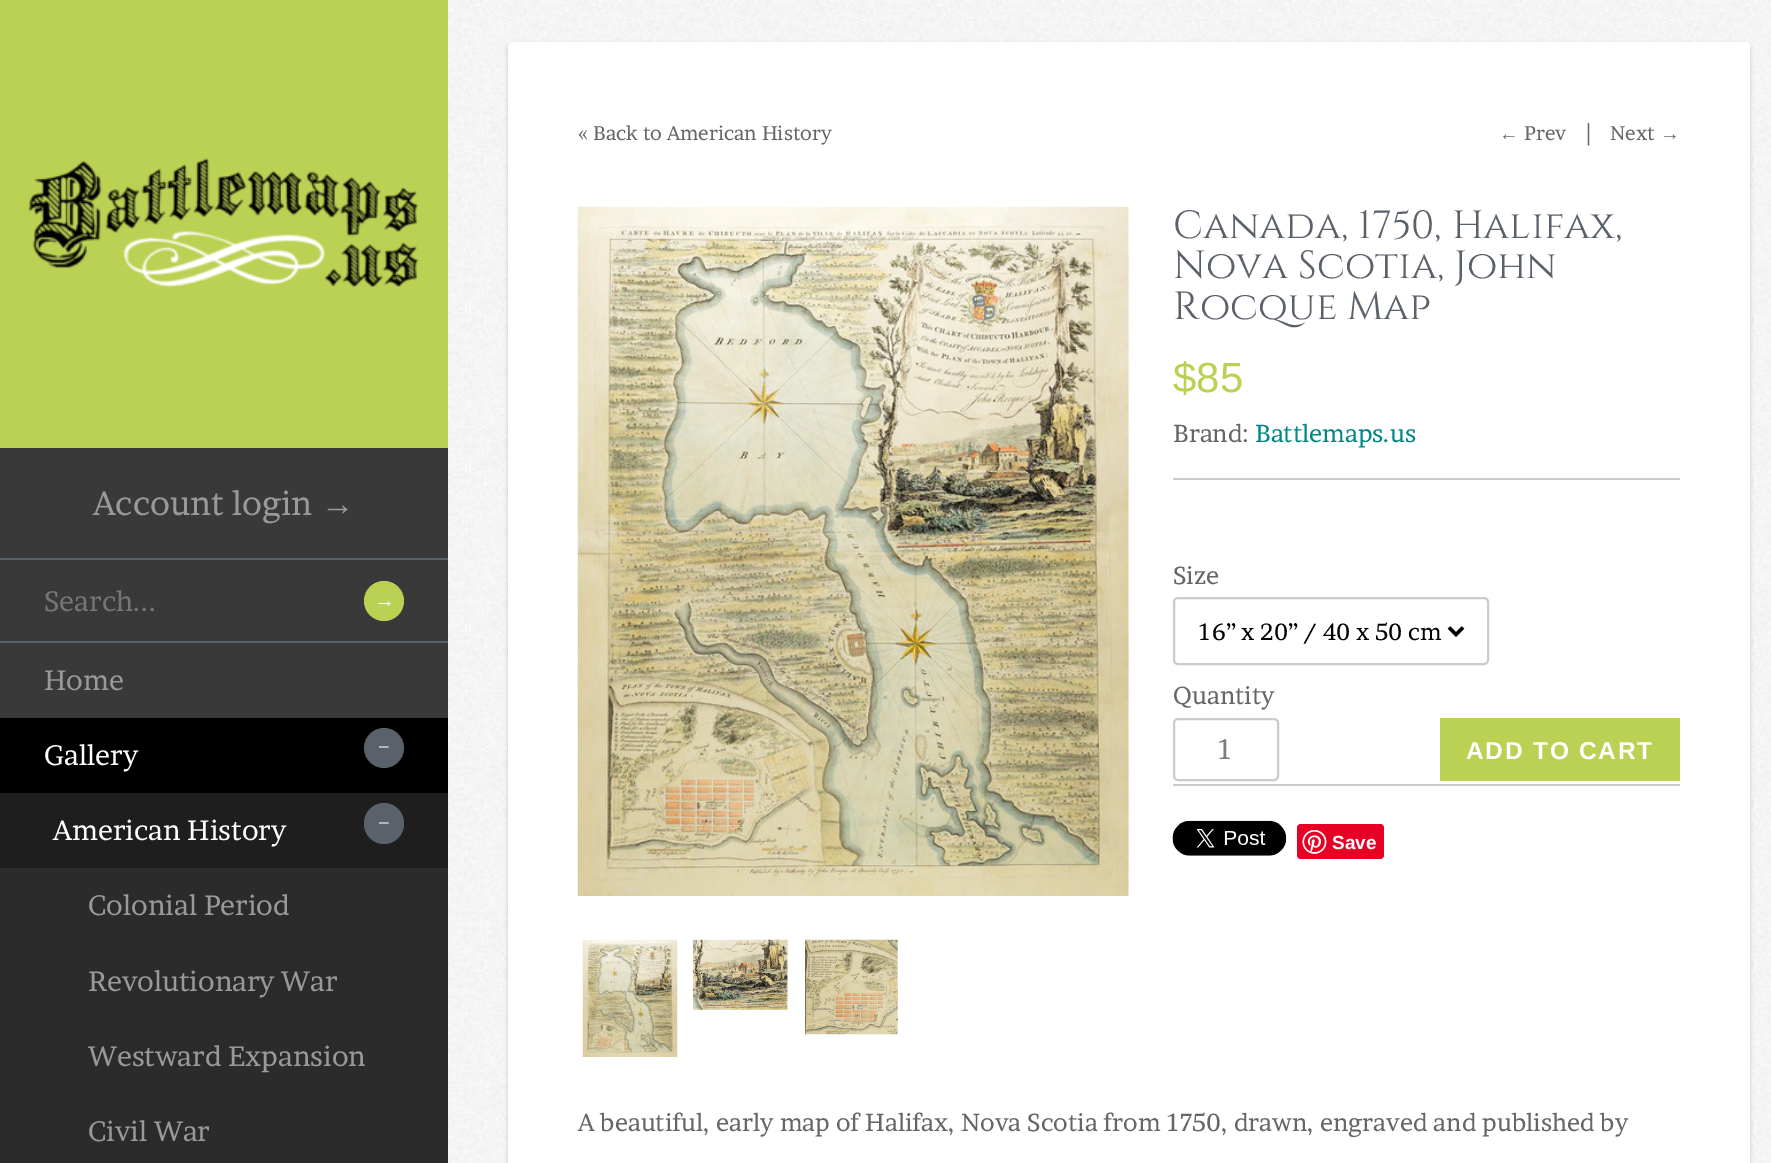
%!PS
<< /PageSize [1771 1163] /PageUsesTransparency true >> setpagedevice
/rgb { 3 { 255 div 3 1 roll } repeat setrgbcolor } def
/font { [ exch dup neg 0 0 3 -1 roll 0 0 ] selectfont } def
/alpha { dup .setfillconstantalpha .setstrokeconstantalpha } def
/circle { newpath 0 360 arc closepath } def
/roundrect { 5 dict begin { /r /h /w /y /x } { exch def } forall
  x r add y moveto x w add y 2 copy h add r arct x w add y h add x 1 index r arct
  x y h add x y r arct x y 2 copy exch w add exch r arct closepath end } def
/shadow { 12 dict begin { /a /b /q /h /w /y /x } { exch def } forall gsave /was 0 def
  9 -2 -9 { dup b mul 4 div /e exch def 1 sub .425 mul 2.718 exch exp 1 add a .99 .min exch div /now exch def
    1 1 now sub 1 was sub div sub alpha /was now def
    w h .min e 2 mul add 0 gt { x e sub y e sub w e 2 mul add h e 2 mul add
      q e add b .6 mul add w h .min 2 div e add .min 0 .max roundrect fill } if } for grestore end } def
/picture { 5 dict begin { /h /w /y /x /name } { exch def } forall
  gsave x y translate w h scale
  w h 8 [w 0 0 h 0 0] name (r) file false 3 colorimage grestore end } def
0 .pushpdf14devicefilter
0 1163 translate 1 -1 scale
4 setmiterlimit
255 255 255 rgb
0 0 1771 1163 rectfill
(img/1.rgb) 448 0 1323 1163 picture
57 57 57 rgb
0 448 448 270 rectfill
186 209 84 rgb
0 0 448 448 rectfill
(img/2.rgb) 28 158 391 129 picture
91 97 105 rgb
0 558 448 2 rectfill
0 641 448 2 rectfill
186 209 84 rgb
384 601 20 circle fill
0 0 0 rgb
0 718 448 75 rectfill
91 97 105 rgb
384 748 20 circle fill
30 30 30 rgb
0 793 448 75 rectfill
91 97 105 rgb
364 803 40 41 20 roundrect fill
43 43 43 rgb
0 868 448 295 rectfill
0 0 0 rgb
508 44 1242 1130 5 2 0.2 shadow
255 255 255 rgb
508 42 1242 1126 5 roundrect fill
(img/3.rgb) 577 206 552 690 picture
(img/4.rgb) 582 939 96 118 picture
(img/5.rgb) 693 939 95 71 picture
(img/6.rgb) 805 939 93 96 picture
204 204 204 rgb
1173 478 507 2 rectfill
2 setlinewidth
1174 598 314 66 4 roundrect stroke
0 0 0 rgb
3.5 setlinewidth
1449 627.5 moveto 1456 634.5 lineto 1463 627.5 lineto stroke
204 204 204 rgb
2 setlinewidth
1174 719 104 61 4 roundrect stroke
186 209 84 rgb
1440 718 240 63 rectfill
204 204 204 rgb
1173 784 507 2 rectfill
(img/7.rgb) 1172 820 115 36 picture
230 0 35 rgb
1297 824 87 35 4 roundrect fill
(img/8.rgb) 1302 830 25 24 picture
/Brawler-Regular 33.5 font
153 153 153 rgb
93 515 moveto (Account login) show
/LiberationSerif-Regular 33.5 font
321 515 moveto (→) show
/Brawler-Regular 28 font
117 117 117 rgb
44 611 moveto (Search...) show
/LiberationSerif-Regular 21 font
255 255 255 rgb
374 607 moveto (→) show
/Brawler-Regular 28 font
153 153 153 rgb
44 690 moveto (Home) show
255 255 255 rgb
44 765 moveto (Gallery) show
/LiberationSerif-Regular 21 font
378 754 moveto (−) show
/Brawler-Regular 28 font
53 840 moveto (American History) show
/LiberationSerif-Regular 21 font
378 830 moveto (−) show
/Brawler-Regular 28 font
153 153 153 rgb
[
  [(Colonial Period) 88 915]
  [(Revolutionary War) 88 991]
  [(Westward Expansion) 88 1066]
  [(Civil War) 88 1141]
] { aload pop moveto show } forall
/Brawler-Regular 19.8 font
102 102 102 rgb
578 140 moveto (« Back to American History) show
/LiberationSerif-Regular 19.8 font
1499 140 moveto (←) show
/Brawler-Regular 19.8 font
1524 140 moveto (Prev) show
/Brawler-Regular 22 font
1586 140 moveto (|) show
/Brawler-Regular 19.8 font
1610 140 moveto (Next) show
/LiberationSerif-Regular 19.8 font
1660 140 moveto (→) show
/Cinzel-Regular 39.25 font
91 97 105 rgb
[
  [(Canada, 1750, Halifax,) 1173 238]
  [(Nova Scotia, John) 1173 278]
  [(Rocque Map) 1173 319]
] { aload pop moveto show } forall
/LiberationSans-Regular 42 font
186 209 84 rgb
1173 392 moveto ($85) show
/Brawler-Regular 24.5 font
102 102 102 rgb
1173 442 moveto (Brand:) show
0 136 132 rgb
1255 442 moveto (Battlemaps.us) show
102 102 102 rgb
1173 584 moveto (Size) show
/Brawler-Regular 23.25 font
0 0 0 rgb
1199 640 moveto (16” x 20” / 40 x 50 cm) show
/Brawler-Regular 24.5 font
102 102 102 rgb
1173 704 moveto (Quantity) show
/Brawler-Regular 28 font
124 124 124 rgb
1218 759 moveto (1) show
/LiberationSans-Bold 24.5 font
255 255 255 rgb
1466 759 moveto 1.75 0 (ADD TO CART) ashow
/LiberationSans-Bold 19 font
1332 849 moveto (Save) show
/Brawler-Regular 24.5 font
102 102 102 rgb
578 1131 moveto (A beautiful, early map of Halifax, Nova Scotia from 1750, drawn, engraved and published by) show
.poppdf14devicefilter showpage
